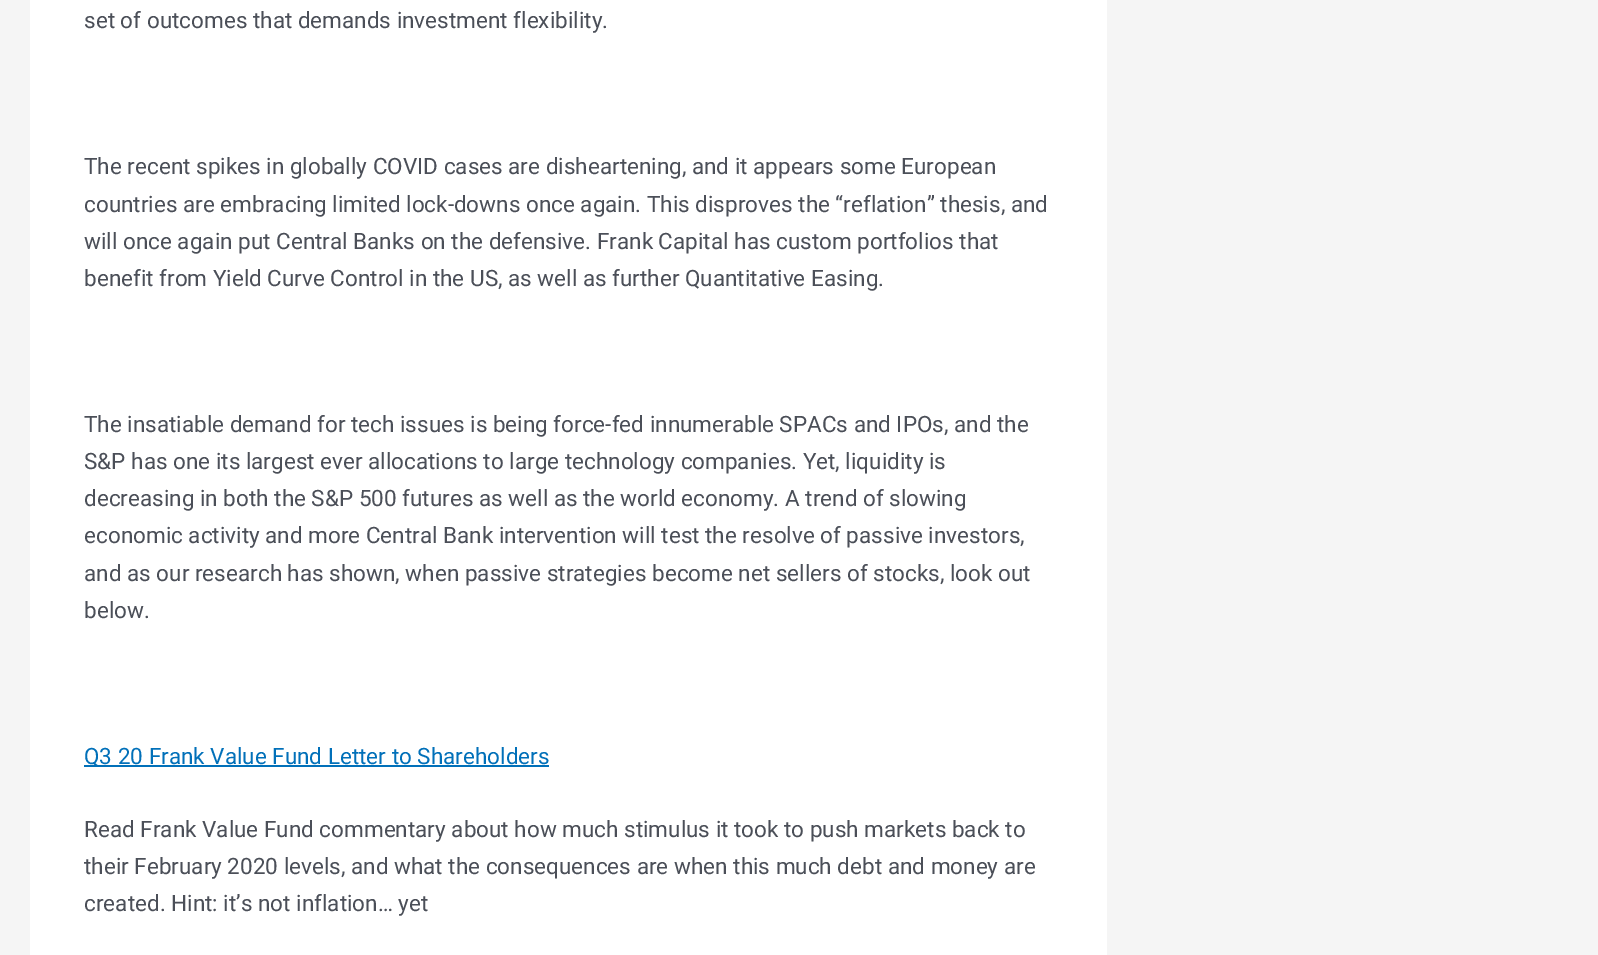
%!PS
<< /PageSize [1598 955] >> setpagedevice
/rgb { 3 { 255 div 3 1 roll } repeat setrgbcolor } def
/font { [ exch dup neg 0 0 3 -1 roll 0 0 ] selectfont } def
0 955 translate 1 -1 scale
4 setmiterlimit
245 245 245 rgb
0 0 1598 955 rectfill
255 255 255 rgb
30 0 1077 955 rectfill
1 112 185 rgb
84 765 465 2 rectfill
/Roboto-Regular 22.5 font
75 79 88 rgb
[
  [(set of outcomes that demands investment flexibility.) 84 28]
  [(The recent spikes in globally COVID cases are disheartening, and it appears some European) 84 174]
  [(countries are embracing limited lock-downs once again. This disproves the “reflation” thesis, and) 84 212]
  [(will once again put Central Banks on the defensive. Frank Capital has custom portfolios that) 84 249]
  [(benefit from Yield Curve Control in the US, as well as further Quantitative Easing.) 84 286]
  [(The insatiable demand for tech issues is being force-fed innumerable SPACs and IPOs, and the) 84 432]
  [(S&P has one its largest ever allocations to large technology companies. Yet, liquidity is) 84 469]
  [(decreasing in both the S&P 500 futures as well as the world economy. A trend of slowing) 84 506]
  [(economic activity and more Central Bank intervention will test the resolve of passive investors,) 84 543]
  [(and as our research has shown, when passive strategies become net sellers of stocks, look out) 84 581]
  [(below.) 84 618]
] { aload pop moveto show } forall
1 112 185 rgb
84 764 moveto (Q3 20 Frank Value Fund Letter to Shareholders) show
75 79 88 rgb
[
  [(Read Frank Value Fund commentary about how much stimulus it took to push markets back to) 84 837]
  [(their February 2020 levels, and what the consequences are when this much debt and money are) 84 874]
  [(created. Hint: it’s not inflation… yet) 84 911]
] { aload pop moveto show } forall
showpage
